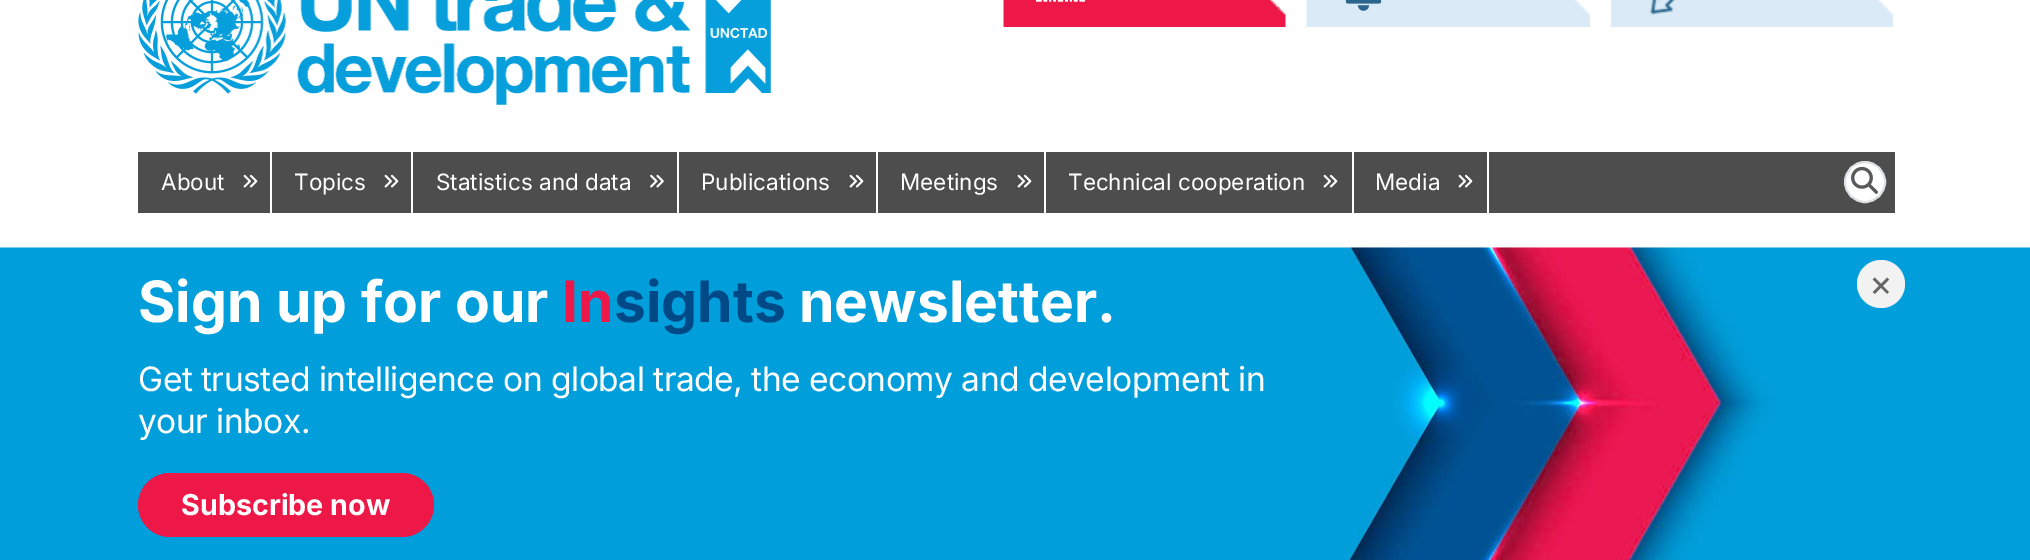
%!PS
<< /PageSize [2030 560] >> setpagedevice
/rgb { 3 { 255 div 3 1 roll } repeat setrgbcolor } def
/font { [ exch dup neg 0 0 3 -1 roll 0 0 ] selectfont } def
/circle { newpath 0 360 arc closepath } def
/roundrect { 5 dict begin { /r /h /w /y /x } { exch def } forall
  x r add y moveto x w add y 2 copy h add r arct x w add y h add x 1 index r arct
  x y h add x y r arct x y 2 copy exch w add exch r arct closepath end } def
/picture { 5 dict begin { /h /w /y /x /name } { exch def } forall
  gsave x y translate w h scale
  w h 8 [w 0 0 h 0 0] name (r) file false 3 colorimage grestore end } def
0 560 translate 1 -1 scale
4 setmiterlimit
255 255 255 rgb
0 0 2030 560 rectfill
(img/1.rgb) 138 0 633 105 picture
(img/2.rgb) 1003 0 283 27 picture
(img/3.rgb) 1036 0 49 2 picture
(img/4.rgb) 1306 0 284 27 picture
(img/5.rgb) 1345 0 37 11 picture
(img/6.rgb) 1611 0 282 27 picture
(img/7.rgb) 1649 0 27 15 picture
77 77 77 rgb
138 152 1757 61 rectfill
255 255 255 rgb
270 152 2 61 rectfill
(img/8.rgb) 243 174 15 14 picture
411 152 2 61 rectfill
(img/8.rgb) 384 174 15 14 picture
677 152 2 61 rectfill
(img/9.rgb) 650 174 14 14 picture
876 152 2 61 rectfill
(img/8.rgb) 849 174 15 14 picture
1044 152 2 61 rectfill
(img/8.rgb) 1017 174 15 14 picture
1352 152 2 61 rectfill
(img/8.rgb) 1323 174 15 14 picture
1487 152 2 61 rectfill
(img/8.rgb) 1458 174 15 14 picture
1865 182 20 circle gsave fill grestore
222 226 230 rgb
2 setlinewidth
stroke
(img/10.rgb) 1851 166 27 28 picture
(img/11.rgb) 0 247 2030 313 picture
242 242 242 rgb
1881 284 24 circle fill
237 24 71 rgb
138 473 296 64 32 roundrect fill
/Inter-Regular 22.5 font
255 255 255 rgb
[
  [(About) 161 190]
  [(Topics) 294 190]
  [(Statistics and data) 436 190]
  [(Publications) 701 190]
  [(Meetings) 900 190]
  [(Technical cooperation) 1068 190]
  [(Media) 1375 190]
] { aload pop moveto show } forall
/Inter-Bold 57 font
138 322 moveto (Sign up for our) show
237 24 71 rgb
562 322 moveto (In) show
0 73 135 rgb
614 322 moveto (sights) show
255 255 255 rgb
799 322 moveto (newsletter.) show
/Inter-Regular 36 font
102 102 102 rgb
1869 296 moveto (×) show
/Inter-Regular 33.6 font
255 255 255 rgb
138 391 moveto -0.53 0 (Get trusted intelligence on global trade, the economy and) ashow
1028 391 moveto -0.53 0 (development in) ashow
138 433 moveto -0.53 0 (your inbox.) ashow
/Inter-Bold 28.75 font
181 515 moveto (Subscribe now) show
showpage
